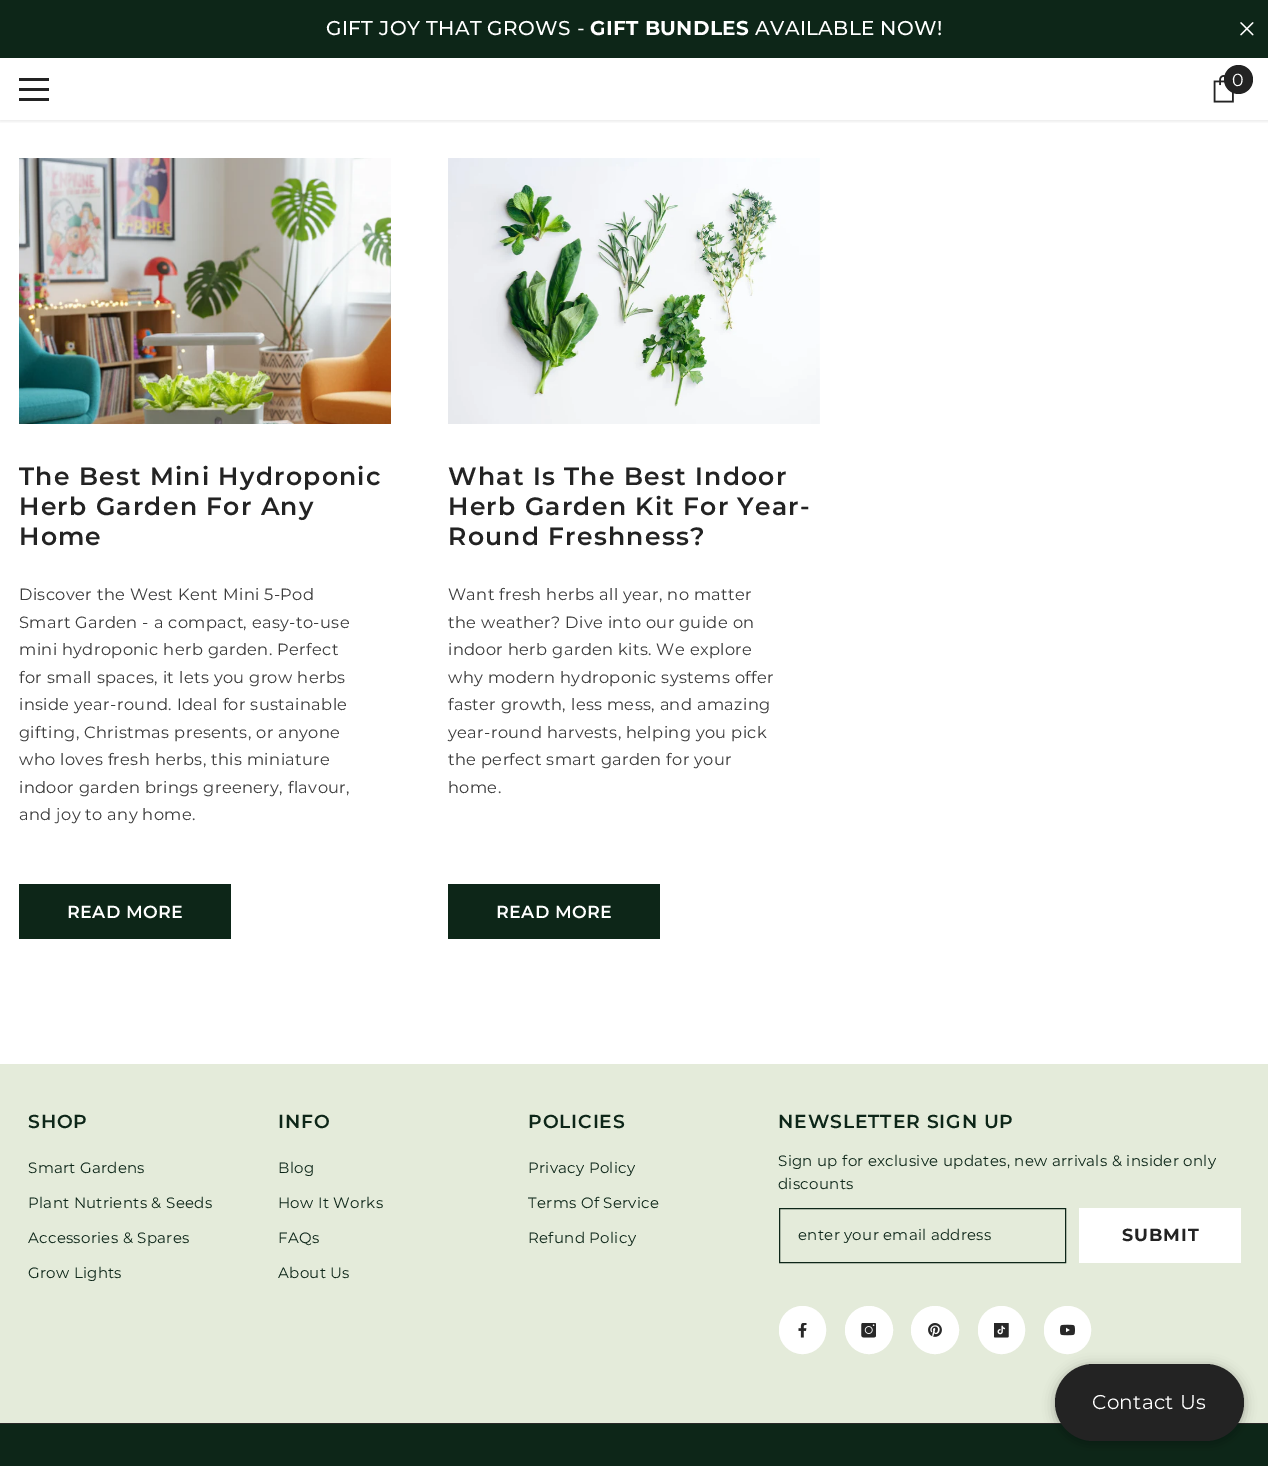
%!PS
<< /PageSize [1268 1466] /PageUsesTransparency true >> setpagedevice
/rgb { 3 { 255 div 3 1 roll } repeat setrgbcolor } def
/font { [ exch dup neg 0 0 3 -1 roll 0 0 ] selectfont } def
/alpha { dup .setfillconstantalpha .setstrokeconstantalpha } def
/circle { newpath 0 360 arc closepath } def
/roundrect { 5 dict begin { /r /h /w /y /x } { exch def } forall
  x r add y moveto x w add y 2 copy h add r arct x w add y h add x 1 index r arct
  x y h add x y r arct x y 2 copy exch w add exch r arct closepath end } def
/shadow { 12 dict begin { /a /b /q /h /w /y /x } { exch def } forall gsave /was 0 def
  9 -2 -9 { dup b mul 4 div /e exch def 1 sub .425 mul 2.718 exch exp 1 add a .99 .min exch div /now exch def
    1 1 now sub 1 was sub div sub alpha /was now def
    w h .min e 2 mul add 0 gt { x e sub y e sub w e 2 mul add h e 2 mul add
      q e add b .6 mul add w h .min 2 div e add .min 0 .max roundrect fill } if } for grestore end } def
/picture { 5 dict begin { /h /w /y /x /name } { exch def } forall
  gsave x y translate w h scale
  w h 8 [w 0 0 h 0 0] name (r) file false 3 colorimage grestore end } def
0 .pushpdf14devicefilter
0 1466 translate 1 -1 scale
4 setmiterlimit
255 255 255 rgb
0 0 1268 1466 rectfill
13 38 24 rgb
0 0 1268 58 rectfill
(img/1.rgb) 1240 22 14 14 picture
gsave
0 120 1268 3 rectclip
0 0 0 rgb
0 59 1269 62 0 2 0.1 shadow
grestore
[
  [19 88 30 3 35 35 35]
  [19 78 30 3 35 35 35]
  [19 98 30 3 35 35 35]
] { aload pop rgb rectfill } forall
(img/2.rgb) 1213 75 21 28 picture
1238.5 79.5 14.5 circle fill
(img/3.rgb) 19 158 372 266 picture
13 38 24 rgb
19 884 212 55 rectfill
(img/4.rgb) 448 158 372 266 picture
448 884 212 55 rectfill
228 235 218 rgb
0 1064 1268 359 rectfill
13 38 24 rgb
779.5 1208.5 286 54 rectstroke
255 255 255 rgb
1079 1208 162 55 rectfill
779.5 1306.5 46 47 23 roundrect gsave fill grestore
stroke
(img/5.rgb) 798 1323 9 15 picture
869 1330 23.5 circle gsave fill grestore
stroke
(img/6.rgb) 861 1323 15 15 picture
935 1330 23.5 circle gsave fill grestore
stroke
(img/7.rgb) 928 1323 14 14 picture
978.5 1306.5 46 47 23 roundrect gsave fill grestore
stroke
(img/8.rgb) 994 1323 15 15 picture
1044.5 1306.5 46 47 23 roundrect gsave fill grestore
stroke
(img/9.rgb) 1060 1324 15 12 picture
13 38 24 rgb
0 1424 1268 42 rectfill
40 40 40 rgb
0 1423 1268 1 rectfill
0 0 0 rgb
1055 1366 189 78 39 6 0.3 shadow
35 35 35 rgb
1055 1364 189 77 38.5 roundrect fill
/Montserrat-Medium 20 font
255 255 255 rgb
326 35 moveto 0.35 0 (GIFT JOY THAT GROWS -) ashow
/Montserrat-Bold 20 font
590 35 moveto 0.35 0 (GIFT BUNDLES) ashow
/Montserrat-Medium 20 font
755 35 moveto 0.35 0 (AVAILABLE NOW!) ashow
/Montserrat-Regular 17.5 font
1232 86 moveto (0) show
/Montserrat-SemiBold 25 font
35 35 35 rgb
19 485 moveto 1.25 0 (The Best Mini Hydroponic) ashow
19 515 moveto 1.25 0 (Herb Garden For Any) ashow
19 545 moveto 1.25 0 (Home) ashow
/Montserrat-Regular 16.25 font
60 60 60 rgb
19 600 moveto 0.35 0 (Discover the West Kent Mini 5-Pod) ashow
19 628 moveto 0.35 0 (Smart Garden - a compact, easy-to-use) ashow
19 655 moveto 0.35 0 (mini hydroponic herb garden. Perfect) ashow
19 683 moveto 0.35 0 (for small spaces, it lets you grow herbs) ashow
19 710 moveto 0.35 0 (inside year-round. Ideal for sustainable) ashow
19 738 moveto 0.35 0 (gifting, Christmas presents, or anyone) ashow
19 765 moveto 0.35 0 (who loves fresh herbs, this miniature) ashow
19 793 moveto 0.35 0 (indoor garden brings greenery, flavour,) ashow
19 820 moveto 0.35 0 (and joy to any home.) ashow
/Montserrat-SemiBold 17.5 font
255 255 255 rgb
67 918 moveto 0.35 0 (READ MORE) ashow
/Montserrat-SemiBold 25 font
35 35 35 rgb
448 485 moveto 1.25 0 (What Is The Best Indoor) ashow
448 515 moveto 1.25 0 (Herb Garden Kit For Year-) ashow
448 545 moveto 1.25 0 (Round Freshness?) ashow
/Montserrat-Regular 16.25 font
60 60 60 rgb
448 600 moveto 0.35 0 (Want fresh herbs all year, no matter) ashow
448 628 moveto 0.35 0 (the weather? Dive into our guide on) ashow
448 655 moveto 0.35 0 (indoor herb garden kits. We explore) ashow
448 683 moveto 0.35 0 (why modern hydroponic systems offer) ashow
448 710 moveto 0.35 0 (faster growth, less mess, and amazing) ashow
448 738 moveto 0.35 0 (year-round harvests, helping you pick) ashow
448 765 moveto 0.35 0 (the perfect smart garden for your) ashow
448 793 moveto 0.35 0 (home.) ashow
/Montserrat-SemiBold 17.5 font
255 255 255 rgb
496 918 moveto 0.35 0 (READ MORE) ashow
/Montserrat-SemiBold 18.75 font
13 38 24 rgb
28 1128 moveto 0.9 0 (SHOP) ashow
/Montserrat-Regular 15 font
28 1173 moveto 0.3 0 (Smart Gardens) ashow
28 1208 moveto 0.3 0 (Plant Nutrients & Seeds) ashow
28 1243 moveto 0.3 0 (Accessories & Spares) ashow
28 1278 moveto 0.3 0 (Grow Lights) ashow
/Montserrat-SemiBold 18.75 font
278 1128 moveto 0.9 0 (INFO) ashow
/Montserrat-Regular 15 font
278 1173 moveto 0.3 0 (Blog) ashow
278 1208 moveto 0.3 0 (How It Works) ashow
278 1243 moveto 0.3 0 (FAQs) ashow
278 1278 moveto 0.3 0 (About Us) ashow
/Montserrat-SemiBold 18.75 font
528 1128 moveto 0.9 0 (POLICIES) ashow
/Montserrat-Regular 15 font
528 1173 moveto 0.3 0 (Privacy Policy) ashow
528 1208 moveto 0.3 0 (Terms Of Service) ashow
528 1243 moveto 0.3 0 (Refund Policy) ashow
/Montserrat-SemiBold 18.75 font
778 1128 moveto 0.9 0 (NEWSLETTER SIGN UP) ashow
/Montserrat-Regular 15 font
778 1166 moveto 0.3 0 (Sign up for exclusive updates, new arrivals & insider only) ashow
778 1189 moveto 0.3 0 (discounts) ashow
798 1240 moveto 0.3 0 (enter your email address) ashow
/Montserrat-Bold 17.5 font
35 35 35 rgb
1122 1241 moveto 1 0 (SUBMIT) ashow
/Montserrat-Regular 20 font
255 255 255 rgb
1092 1409 moveto 0.35 0 (Contact Us) ashow
.poppdf14devicefilter showpage
